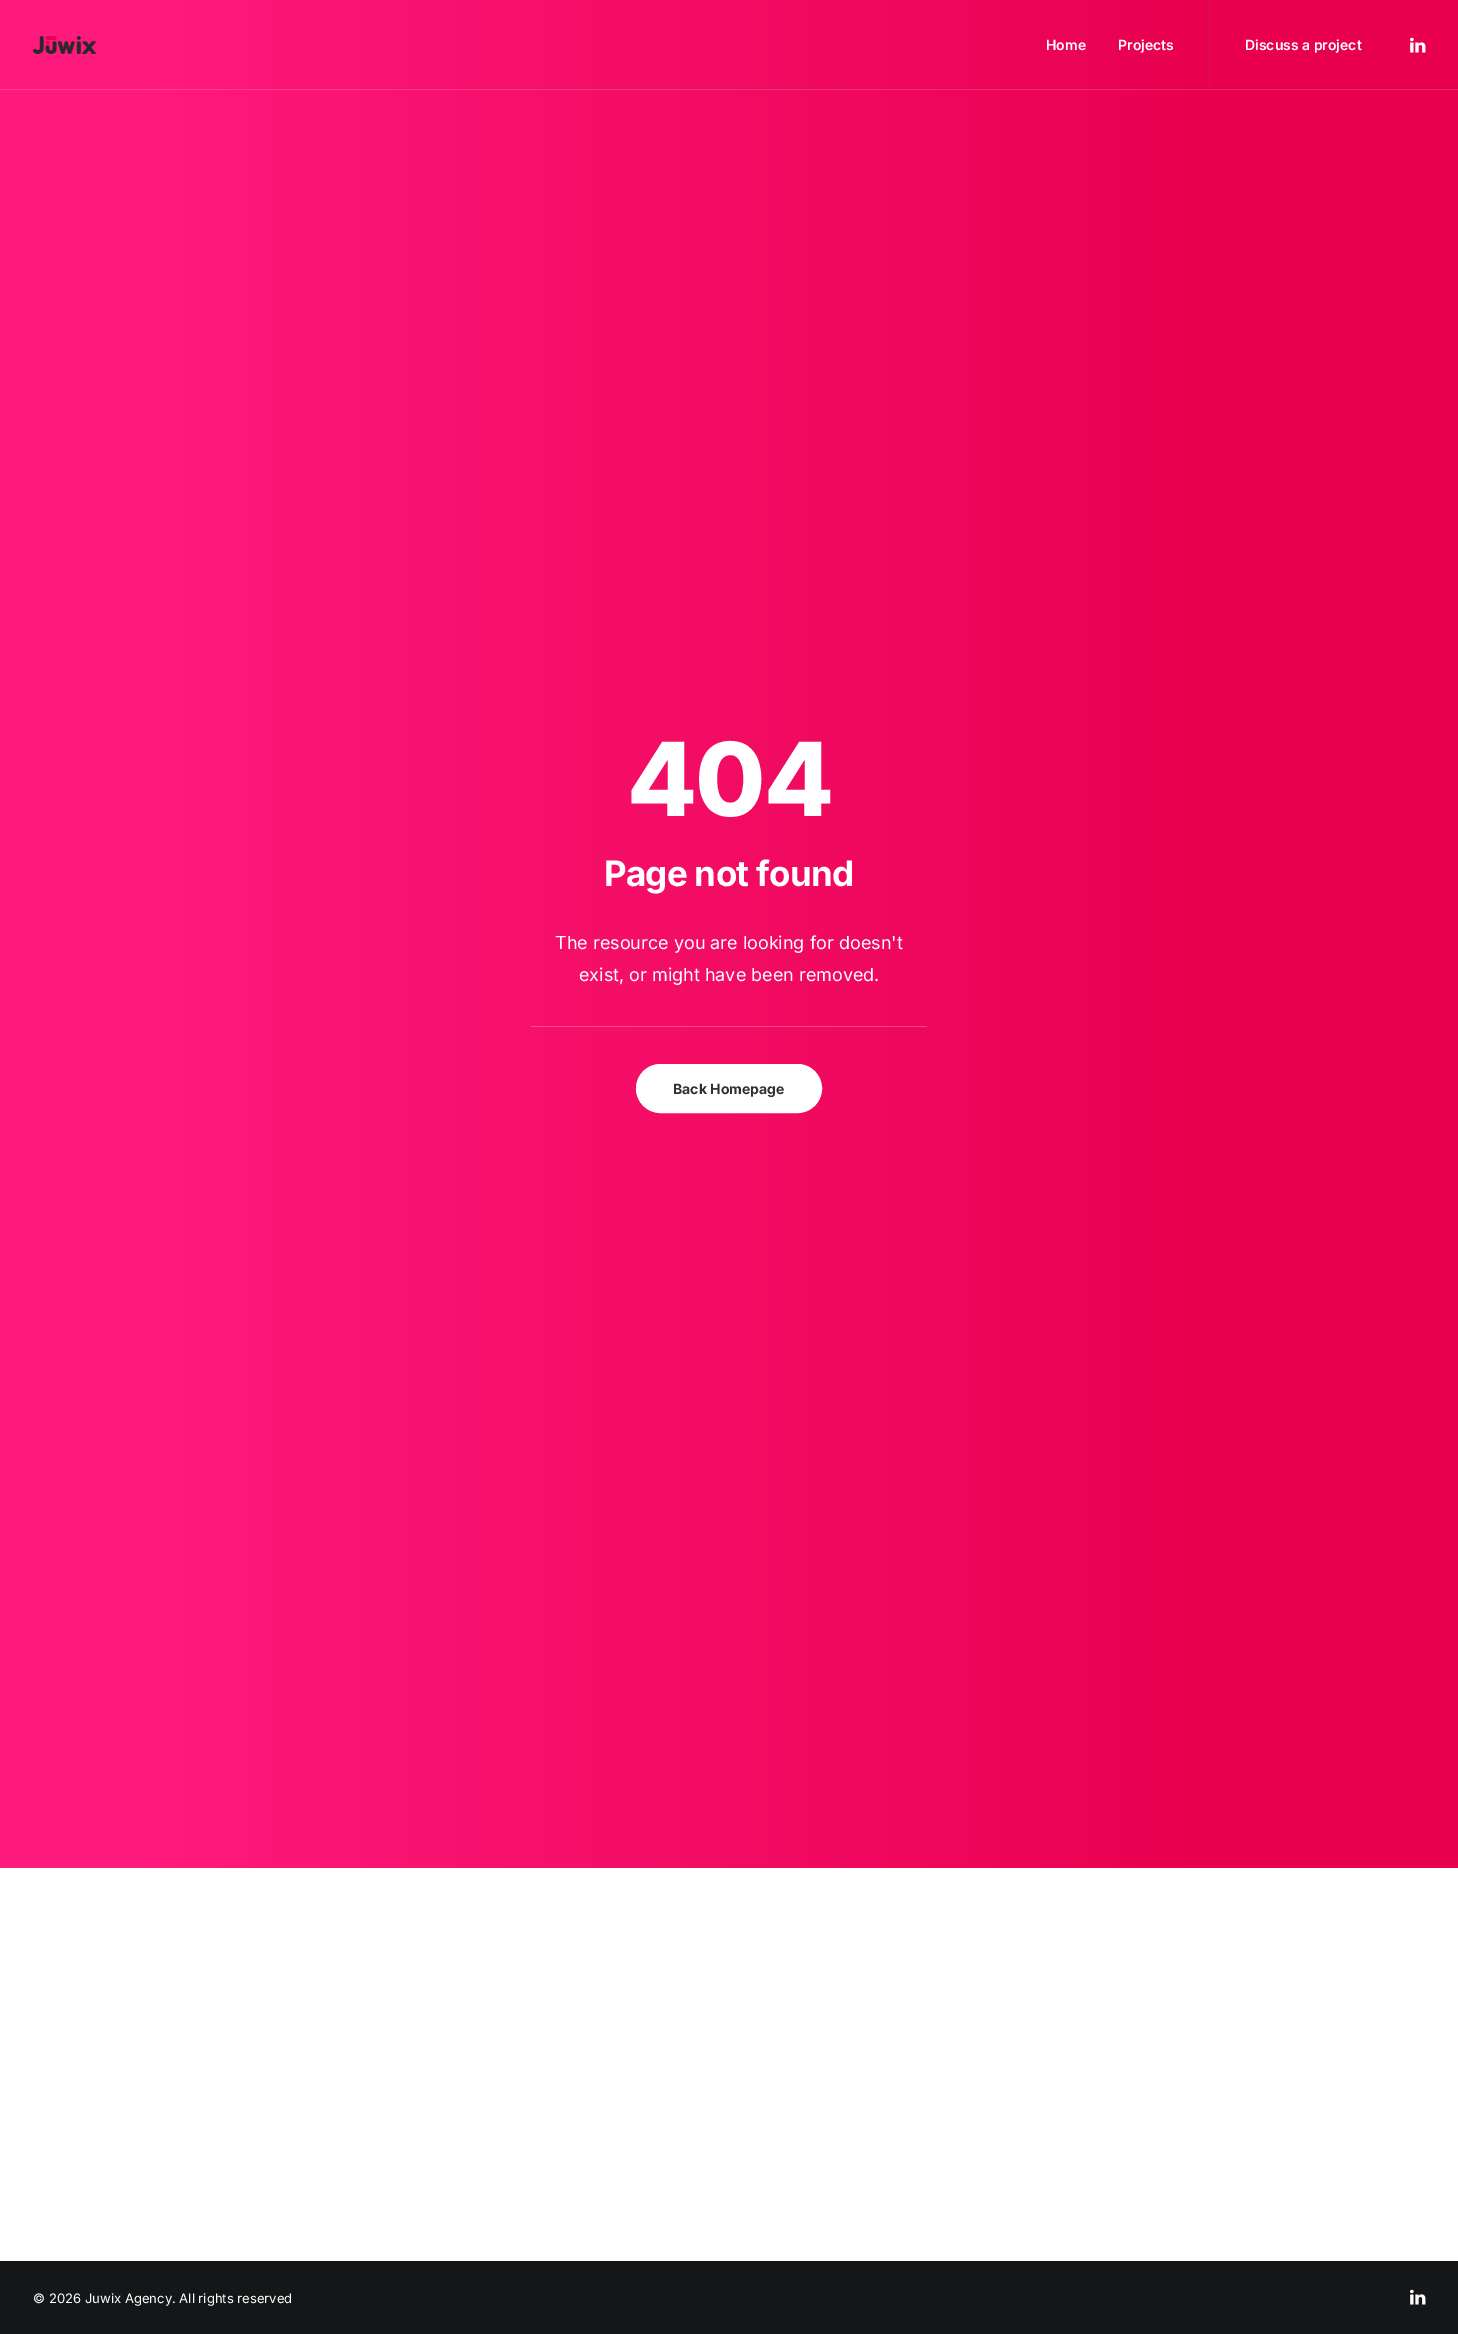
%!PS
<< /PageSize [1458 2334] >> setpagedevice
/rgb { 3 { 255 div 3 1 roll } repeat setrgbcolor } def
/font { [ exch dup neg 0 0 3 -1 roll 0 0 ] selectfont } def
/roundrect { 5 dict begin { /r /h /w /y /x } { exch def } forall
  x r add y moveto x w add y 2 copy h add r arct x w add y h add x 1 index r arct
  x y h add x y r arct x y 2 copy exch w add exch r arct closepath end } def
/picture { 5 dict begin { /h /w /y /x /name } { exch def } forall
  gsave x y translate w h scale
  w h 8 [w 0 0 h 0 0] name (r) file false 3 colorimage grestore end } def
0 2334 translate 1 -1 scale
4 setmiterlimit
20 22 24 rgb
0 0 1458 2334 rectfill
gsave 0 0 moveto 1458 0 lineto 1458 1868 lineto 0 1868 lineto closepath clip newpath
<< /ShadingType 2 /ColorSpace /DeviceRGB /Coords [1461 934 -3 934] /Extend [true true] /Function << /FunctionType 3 /Domain [0 1] /Functions [<< /FunctionType 2 /Domain [0 1] /C0 [0.91 0 0.306] /C1 [0.91 0 0.306] /N 1 >> << /FunctionType 2 /Domain [0 1] /C0 [0.91 0 0.306] /C1 [1 0.102 0.49] /N 1 >> << /FunctionType 2 /Domain [0 1] /C0 [1 0.102 0.49] /C1 [1 0.102 0.49] /N 1 >>] /Bounds [0.16 0.91] /Encode [0 1 0 1 0 1] >> >> shfill grestore
(img/1.rgb) 33 36 63 18 picture
(img/2.rgb) 1410 37 16 16 picture
gsave 1209 0 moveto 1210 0 lineto 1210 90 lineto 1209 90 lineto closepath clip newpath
<< /ShadingType 2 /ColorSpace /DeviceRGB /Coords [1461 934 -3 934] /Extend [true true] /Function << /FunctionType 3 /Domain [0 1] /Functions [<< /FunctionType 2 /Domain [0 1] /C0 [0.843 0.071 0.329] /C1 [0.843 0.071 0.329] /N 1 >> << /FunctionType 2 /Domain [0 1] /C0 [0.843 0.071 0.329] /C1 [0.922 0.157 0.486] /N 1 >> << /FunctionType 2 /Domain [0 1] /C0 [0.922 0.157 0.486] /C1 [0.922 0.157 0.486] /N 1 >>] /Bounds [0.16 0.91] /Encode [0 1 0 1 0 1] >> >> shfill grestore
gsave 0 89 moveto 1458 89 lineto 1458 90 lineto 0 90 lineto closepath clip newpath
<< /ShadingType 2 /ColorSpace /DeviceRGB /Coords [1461 934 -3 934] /Extend [true true] /Function << /FunctionType 3 /Domain [0 1] /Functions [<< /FunctionType 2 /Domain [0 1] /C0 [0.922 0.149 0.412] /C1 [0.922 0.149 0.412] /N 1 >> << /FunctionType 2 /Domain [0 1] /C0 [0.922 0.149 0.412] /C1 [1 0.235 0.569] /N 1 >> << /FunctionType 2 /Domain [0 1] /C0 [1 0.235 0.569] /C1 [1 0.235 0.569] /N 1 >>] /Bounds [0.16 0.91] /Encode [0 1 0 1 0 1] >> >> shfill grestore
gsave 1209 89 moveto 1210 89 lineto 1210 90 lineto 1209 90 lineto closepath clip newpath
<< /ShadingType 2 /ColorSpace /DeviceRGB /Coords [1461 934 -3 934] /Extend [true true] /Function << /FunctionType 3 /Domain [0 1] /Functions [<< /FunctionType 2 /Domain [0 1] /C0 [0.855 0.196 0.42] /C1 [0.855 0.196 0.42] /N 1 >> << /FunctionType 2 /Domain [0 1] /C0 [0.855 0.196 0.42] /C1 [0.922 0.271 0.553] /N 1 >> << /FunctionType 2 /Domain [0 1] /C0 [0.922 0.271 0.553] /C1 [0.922 0.271 0.553] /N 1 >>] /Bounds [0.16 0.91] /Encode [0 1 0 1 0 1] >> >> shfill grestore
gsave 531 1026 moveto 927 1026 lineto 927 1027 lineto 531 1027 lineto closepath clip newpath
<< /ShadingType 2 /ColorSpace /DeviceRGB /Coords [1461 934 -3 934] /Extend [true true] /Function << /FunctionType 3 /Domain [0 1] /Functions [<< /FunctionType 2 /Domain [0 1] /C0 [0.933 0.251 0.478] /C1 [0.933 0.251 0.478] /N 1 >> << /FunctionType 2 /Domain [0 1] /C0 [0.933 0.251 0.478] /C1 [1 0.325 0.62] /N 1 >> << /FunctionType 2 /Domain [0 1] /C0 [1 0.325 0.62] /C1 [1 0.325 0.62] /N 1 >>] /Bounds [0.16 0.91] /Encode [0 1 0 1 0 1] >> >> shfill grestore
255 255 255 rgb
636.5 1064.5 185 48 24 roundrect gsave fill grestore
stroke
0 1868 1458 393 rectfill
(img/3.rgb) 1410 2289 16 16 picture
/Inter-SemiBold 14 font
[
  [(Home) 1046 50]
  [(Projects) 1118 50]
  [(Discuss a project) 1245 50]
] { aload pop moveto show } forall
/Inter-ExtraBold 102 font
627 816 moveto -2 0 (404) ashow
/Inter-Bold 35 font
604 886 moveto -0.75 0 (Page not found) ashow
/Inter-Regular 18 font
555 949 moveto (The resource you are looking for doesn't) show
579 981 moveto (exist, or might have been removed.) show
/Inter-Bold 14 font
48 49 51 rgb
673 1094 moveto (Back Homepage) show
/Inter-Regular 13.1 font
255 255 255 rgb
33 2303 moveto (© 2026 Juwix Agency. All rights reserved) show
showpage
